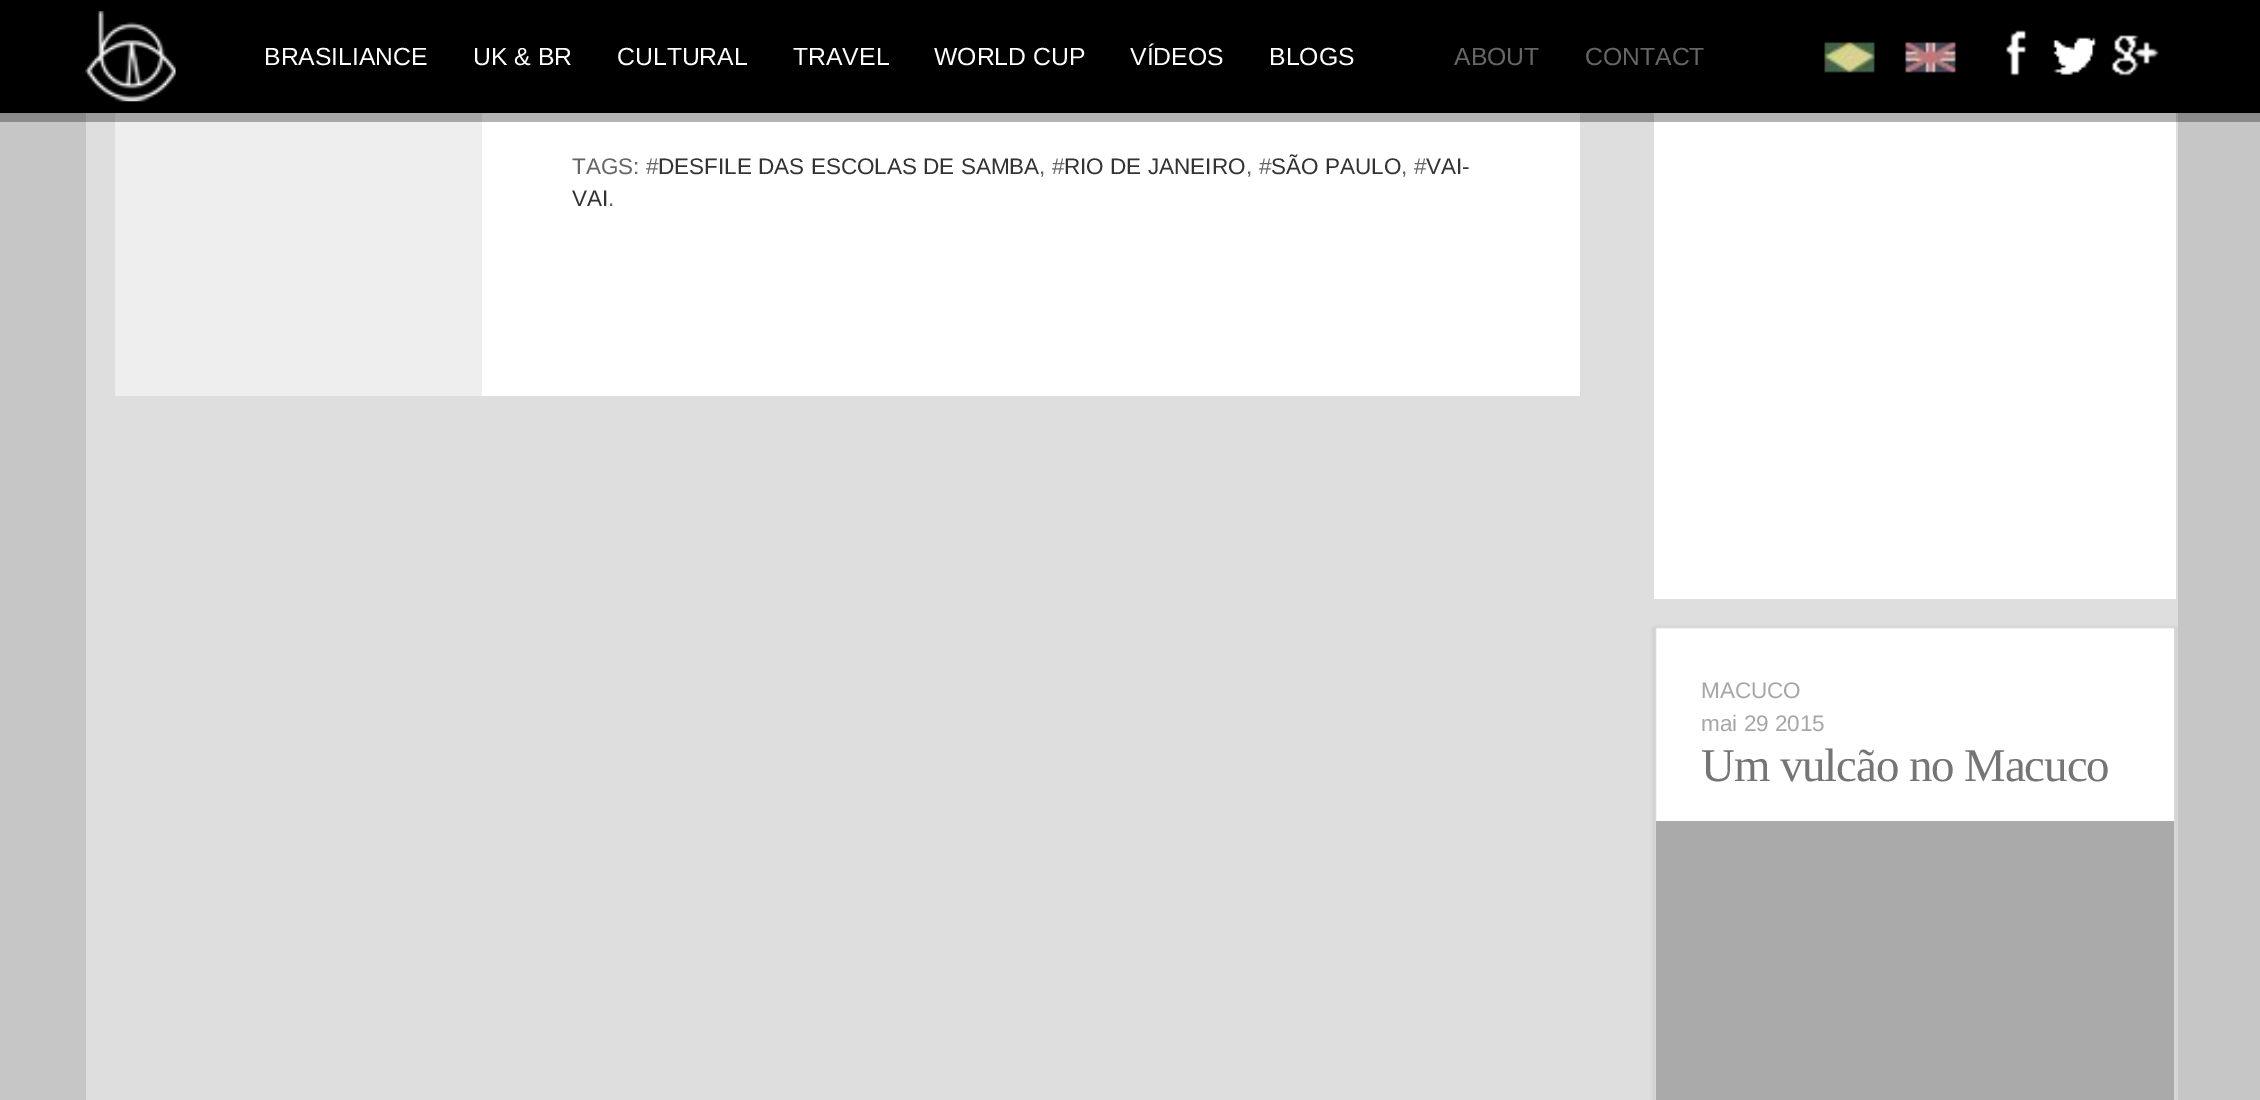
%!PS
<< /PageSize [2260 1100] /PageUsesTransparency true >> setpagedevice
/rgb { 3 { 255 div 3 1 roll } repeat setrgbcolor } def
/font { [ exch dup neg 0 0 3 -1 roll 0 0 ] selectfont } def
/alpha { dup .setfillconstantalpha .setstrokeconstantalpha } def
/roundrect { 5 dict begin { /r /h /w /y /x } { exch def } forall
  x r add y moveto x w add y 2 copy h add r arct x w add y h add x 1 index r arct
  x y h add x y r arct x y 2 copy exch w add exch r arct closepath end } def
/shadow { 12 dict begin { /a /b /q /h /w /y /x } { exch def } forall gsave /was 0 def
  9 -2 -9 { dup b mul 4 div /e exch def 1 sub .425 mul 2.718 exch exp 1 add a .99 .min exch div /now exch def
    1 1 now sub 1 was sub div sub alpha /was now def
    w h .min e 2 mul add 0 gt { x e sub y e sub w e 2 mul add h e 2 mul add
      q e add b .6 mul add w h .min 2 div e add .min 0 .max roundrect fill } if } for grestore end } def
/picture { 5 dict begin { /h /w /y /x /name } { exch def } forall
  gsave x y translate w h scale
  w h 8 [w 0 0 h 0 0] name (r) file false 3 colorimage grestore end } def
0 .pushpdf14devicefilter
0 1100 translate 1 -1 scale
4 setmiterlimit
198 198 198 rgb
0 0 2260 1100 rectfill
139 139 139 rgb
0 113 2260 9 rectfill
0 0 0 rgb
0 0 2260 113 rectfill
(img/1.rgb) 85 11 91 91 picture
(img/2.rgb) 1824 42 51 31 picture
(img/3.rgb) 1905 42 51 31 picture
(img/4.rgb) 2006 30 21 46 picture
(img/5.rgb) 2053 37 43 38 picture
(img/6.rgb) 2111 35 48 41 picture
[
  [86 122 2092 978 222 222 222]
  [86 113 2092 9 155 155 155]
  [482 122 1098 274 255 255 255]
  [482 113 1098 9 179 179 179]
  [115 122 367 274 238 238 238]
  [115 113 367 9 167 167 167]
  [1654 122 522 477 255 255 255]
  [1654 113 522 9 179 179 179]
] { aload pop rgb rectfill } forall
190 187 187 rgb
1654 628 522 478 0 2 1 shadow
255 255 255 rgb
1656 628 518 193 rectfill
215 215 215 rgb
2 setlinewidth
1655 627 520 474 rectstroke
170 170 170 rgb
1656 821 518 279 rectfill
/LiberationSans-Regular 24.75 font
255 255 255 rgb
[
  [(BRASILIANCE) 264 65]
  [(UK & BR) 473 65]
  [(CULTURAL) 617 65]
  [(TRAVEL) 793 65]
  [(WORLD CUP) 934 65]
  [(VÍDEOS) 1130 65]
  [(BLOGS) 1269 65]
] { aload pop moveto show } forall
102 102 102 rgb
1454 65 moveto (ABOUT) show
1585 65 moveto (CONTACT) show
/LiberationSans-Regular 22.5 font
572 174 moveto (TAGS: #) show
51 51 51 rgb
658 174 moveto (DESFILE DAS ESCOLAS DE SAMBA) show
102 102 102 rgb
1039 174 moveto (, #) show
51 51 51 rgb
1064 174 moveto (RIO DE JANEIRO) show
102 102 102 rgb
1246 174 moveto (, #) show
51 51 51 rgb
1271 174 moveto (SÃO PAULO) show
102 102 102 rgb
1401 174 moveto (, #) show
51 51 51 rgb
1426 174 moveto (VAI-) show
572 206 moveto (VAI) show
102 102 102 rgb
608 206 moveto (.) show
166 166 166 rgb
1701 698 moveto (MACUCO) show
1701 731 moveto (mai 29 2015) show
/LiberationSerif-Regular 46.9 font
117 117 117 rgb
1701 781 moveto -1.1 0 (Um vulcão no Macuco) ashow
.poppdf14devicefilter showpage
